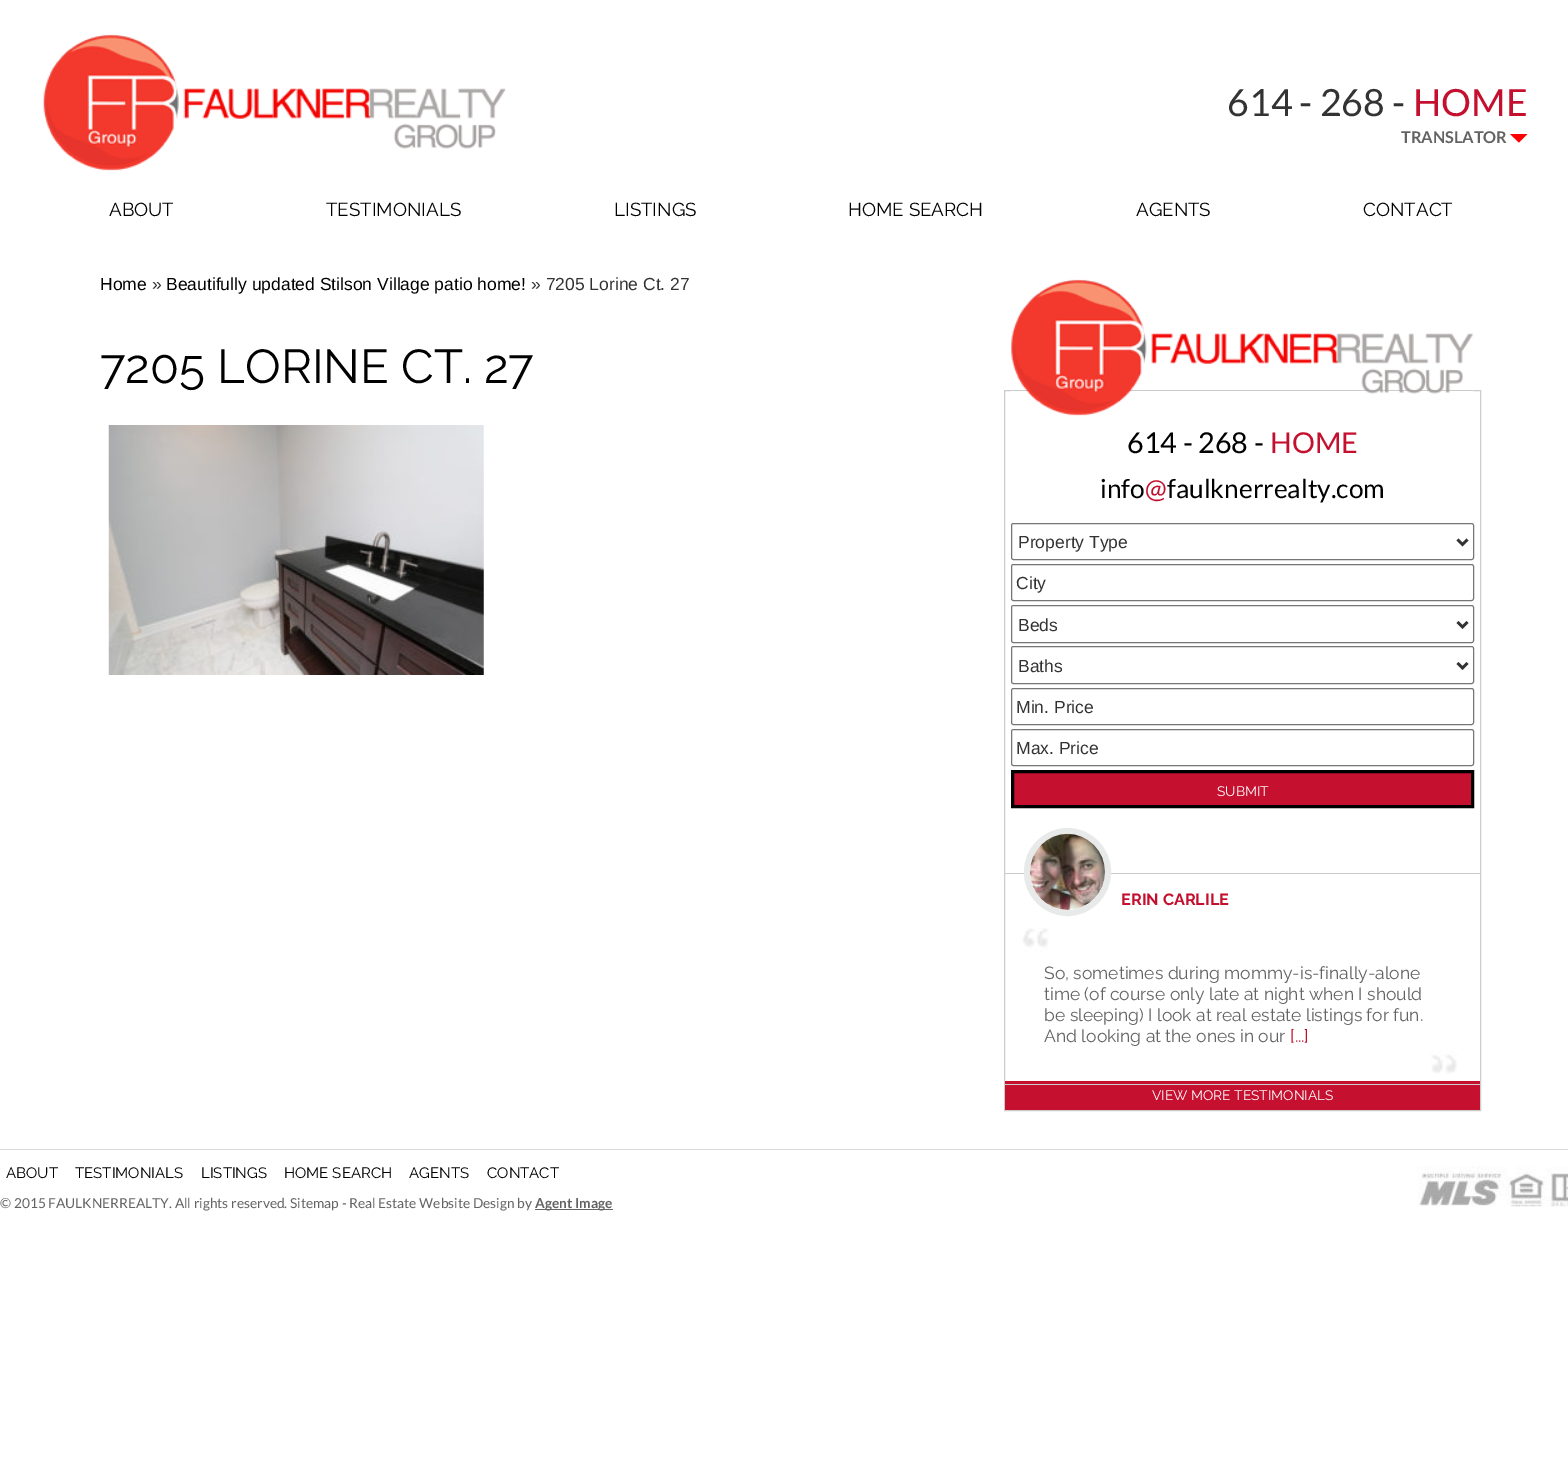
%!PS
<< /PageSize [1568 1466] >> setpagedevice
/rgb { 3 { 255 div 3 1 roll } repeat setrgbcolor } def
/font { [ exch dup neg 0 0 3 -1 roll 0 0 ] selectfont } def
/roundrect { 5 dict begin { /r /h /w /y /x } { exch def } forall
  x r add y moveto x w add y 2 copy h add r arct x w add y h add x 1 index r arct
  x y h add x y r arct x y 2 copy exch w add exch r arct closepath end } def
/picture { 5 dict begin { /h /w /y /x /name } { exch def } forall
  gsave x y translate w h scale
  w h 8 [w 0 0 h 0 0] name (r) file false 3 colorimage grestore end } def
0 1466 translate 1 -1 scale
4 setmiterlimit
255 255 255 rgb
0 0 1568 1466 rectfill
(img/1.rgb) 43 34 463 137 picture
255 0 0 rgb
1510 134 moveto 1527.5 134 lineto 1519 142.5 lineto closepath fill
(img/2.rgb) 108 425 376 250 picture
204 204 204 rgb
1004.5 390.5 476 720 rectstroke
(img/3.rgb) 1011 279 462 137 picture
118 118 118 rgb
1011.5 523.5 462 36 2 roundrect stroke
51 51 51 rgb
2.5 setlinewidth
1457.5 539.5 moveto 1462.5 544.5 lineto 1467.5 539.5 lineto stroke
118 118 118 rgb
1 setlinewidth
1011.5 564.5 462 36 2 roundrect stroke
1011.5 605.5 462 37 2 roundrect stroke
51 51 51 rgb
2.5 setlinewidth
1457.5 622 moveto 1462.5 627 lineto 1467.5 622 lineto stroke
118 118 118 rgb
1 setlinewidth
1011.5 646.5 462 37 2 roundrect stroke
51 51 51 rgb
2.5 setlinewidth
1457.5 663 moveto 1462.5 668 lineto 1467.5 663 lineto stroke
118 118 118 rgb
1 setlinewidth
1011.5 688.5 462 36 2 roundrect stroke
1011.5 729.5 462 36 2 roundrect stroke
197 16 47 rgb
1012.5 771.5 moveto 1472.5 771.5 lineto 1472.5 806.5 lineto 1012.5 806.5 lineto closepath gsave fill grestore
0 0 0 rgb
3 setlinewidth
stroke
[
  [1005 873 475 1 204 204 204]
  [1005 1081 475 29 197 16 47]
  [1005 1084 475 1 204 204 204]
] { aload pop rgb rectfill } forall
232 234 233 rgb
6 setlinewidth
1027 831 81 82 40.5 roundrect stroke
(img/4.rgb) 1030 833 75 77 picture
(img/5.rgb) 1022 928 435 146 picture
220 220 220 rgb
0 1149 1568 1 rectfill
(img/6.rgb) 1418 1166 150 41 picture
102 102 102 rgb
535 1209 78 1 rectfill
/Lato-Regular 37.5 font
51 51 51 rgb
1227 116 moveto (614 - 268 -) show
196 15 46 rgb
1413 116 moveto (HOME) show
/Lato-Bold 16.25 font
99 99 99 rgb
1401 143 moveto (TRANSLATOR) show
/Raleway-Regular 18.75 font
0 0 0 rgb
[
  [(ABOUT) 109 216]
  [(TESTIMONIALS) 326 216]
  [(LISTINGS) 614 216]
  [(HOME SEARCH) 848 216]
  [(AGENTS) 1136 216]
  [(CONTACT) 1363 216]
] { aload pop moveto show } forall
/LiberationSans-Regular 17.5 font
100 290 moveto (Home) show
51 51 51 rgb
152 290 moveto (») show
0 0 0 rgb
166 290 moveto (Beautifully updated Stilson Village patio home!) show
51 51 51 rgb
531 290 moveto (» 7205 Lorine Ct. 27) show
/Raleway-Regular 47.5 font
0 0 0 rgb
100 383 moveto (7205 LORINE CT. 27) show
/Lato-Regular 28.75 font
1127 453 moveto (614 - 268 -) show
196 15 46 rgb
1270 453 moveto (HOME) show
/Lato-Regular 26.25 font
0 0 0 rgb
1100 498 moveto (info) show
196 15 46 rgb
1145 498 moveto (@) show
0 0 0 rgb
1167 498 moveto (faulknerrealty.com) show
/LiberationSans-Regular 17.5 font
51 51 51 rgb
[
  [(Property Type) 1018 548]
  [(City) 1016 589]
  [(Beds) 1018 631]
  [(Baths) 1018 672]
  [(Min. Price) 1016 713]
  [(Max. Price) 1016 754]
] { aload pop moveto show } forall
/Raleway-Regular 13.75 font
255 255 255 rgb
1217 796 moveto (SUBMIT) show
/Raleway-Bold 16.25 font
196 15 46 rgb
1121 905 moveto (ERIN CARLILE) show
/Raleway-Regular 17.5 font
99 99 99 rgb
[
  [(So, sometimes during mommy-is-finally-alone) 1044 979]
  [(time \(of course only late at night when I should) 1044 1000]
  [(be sleeping\) I look at real estate listings for fun.) 1044 1021]
  [(And looking at the ones in our) 1044 1042]
] { aload pop moveto show } forall
196 15 46 rgb
1290 1042 moveto ([...]) show
/Raleway-Regular 13.75 font
255 255 255 rgb
1152 1100 moveto (VIEW MORE TESTIMONIALS) show
/Raleway-Regular 15 font
0 0 0 rgb
[
  [(ABOUT) 6 1178]
  [(TESTIMONIALS) 75 1178]
  [(LISTINGS) 201 1178]
  [(HOME SEARCH) 284 1178]
  [(AGENTS) 409 1178]
  [(CONTACT) 487 1178]
] { aload pop moveto show } forall
/Lato-Regular 13.75 font
99 99 99 rgb
0 1208 moveto (© 2015 FAULKNERREALTY. All rights reserved. Sitemap - Real Estate Website Design by) show
/Lato-Bold 13.75 font
535 1208 moveto (Agent Image) show
showpage
